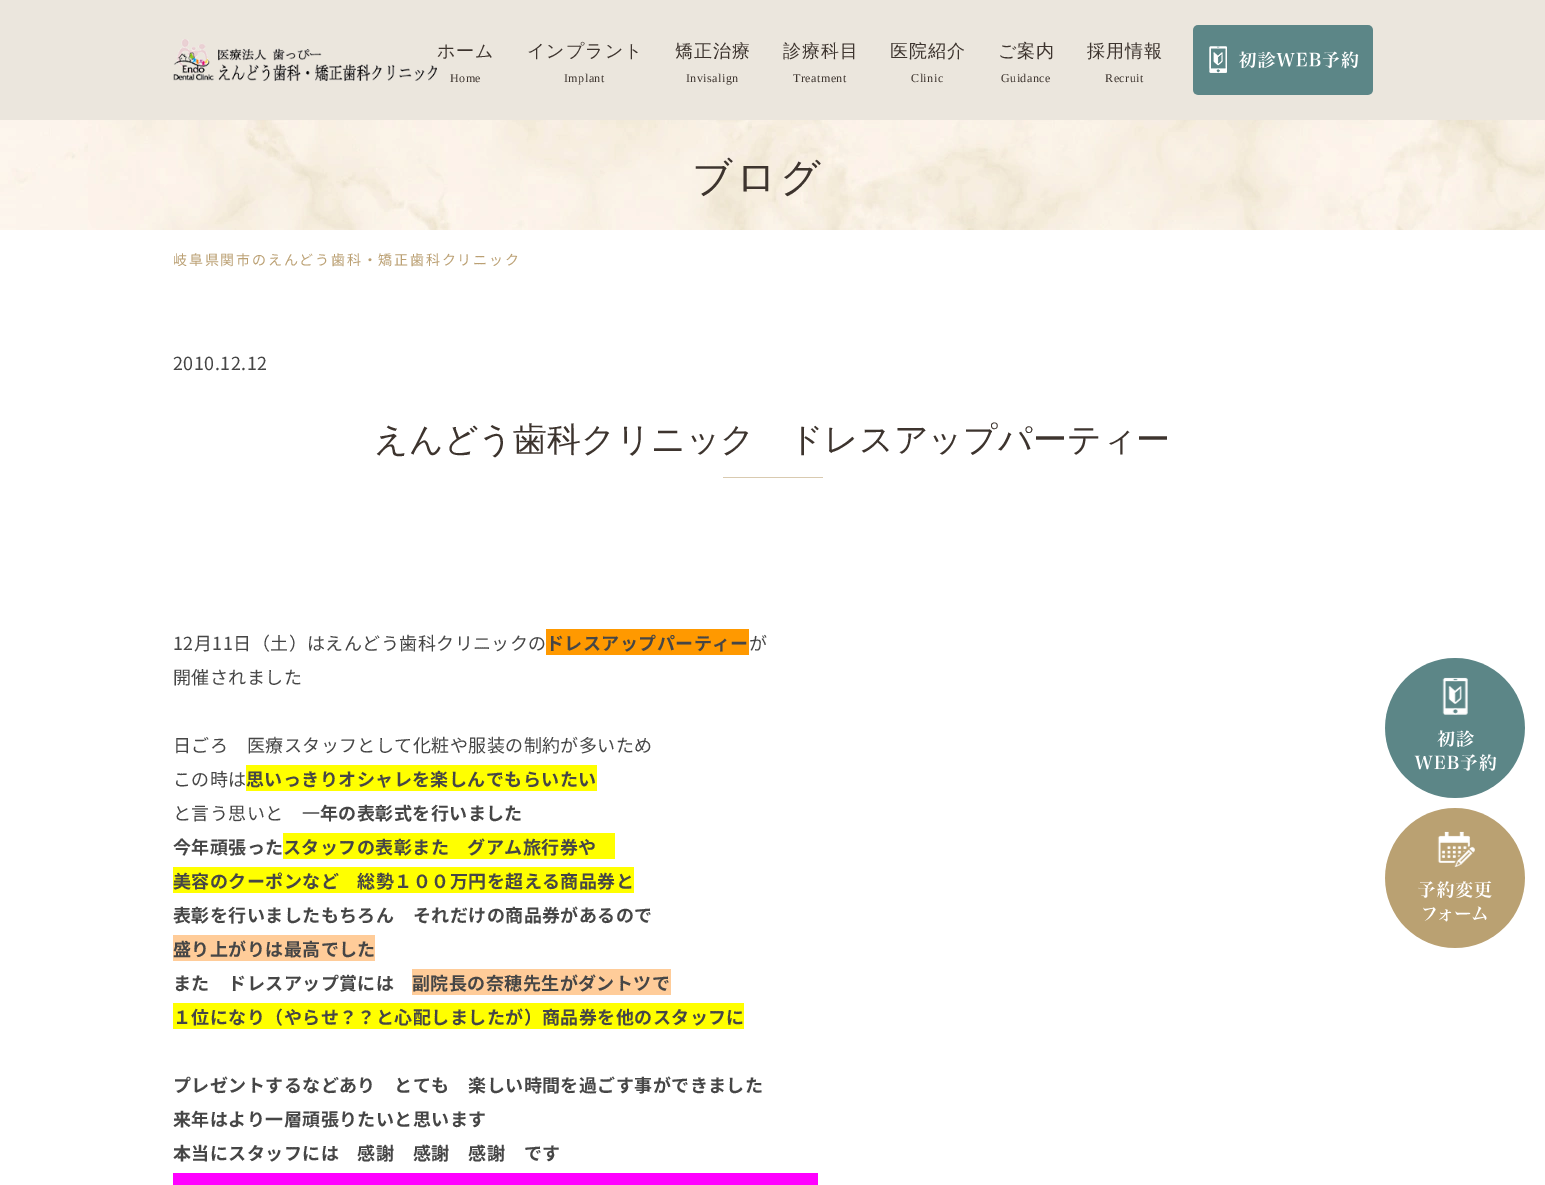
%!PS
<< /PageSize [1545 1185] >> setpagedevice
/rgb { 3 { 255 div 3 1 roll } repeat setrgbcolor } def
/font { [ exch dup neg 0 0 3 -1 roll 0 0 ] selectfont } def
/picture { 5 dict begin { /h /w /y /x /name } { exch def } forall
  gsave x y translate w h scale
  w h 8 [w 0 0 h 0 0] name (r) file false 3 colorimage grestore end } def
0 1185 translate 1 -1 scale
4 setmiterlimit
255 255 255 rgb
0 0 1545 1185 rectfill
235 230 221 rgb
0 0 1545 120 rectfill
(img/1.rgb) 173 39 264 42 picture
(img/2.rgb) 1193 25 180 70 picture
(img/3.rgb) 0 120 1545 110 picture
[
  [723 477 100 1 217 202 176]
  [546 629 203 26 255 153 0]
  [246 765 351 26 255 255 0]
  [283 833 332 26 255 255 0]
  [173 867 461 26 255 255 0]
  [173 935 202 26 255 204 153]
  [412 969 259 26 255 204 153]
  [173 1003 571 26 255 255 0]
  [173 1173 645 12 255 0 255]
] { aload pop rgb rectfill } forall
(img/4.rgb) 1385 658 140 140 picture
(img/5.rgb) 1385 808 140 140 picture
/WenQuanYiZenHei-Medium 18 font
61 52 46 rgb
437 57 moveto 1 0 (ホーム) ashow
/LiberationSerif-Regular 12 font
450 82 moveto 0.5 0 (Home) ashow
/WenQuanYiZenHei-Medium 18 font
527 57 moveto 1 0 (インプラント) ashow
/LiberationSerif-Regular 12 font
564 82 moveto 0.5 0 (Implant) ashow
/WenQuanYiZenHei-Medium 18 font
675 57 moveto 1 0 (矯正治療) ashow
/LiberationSerif-Regular 12 font
686 82 moveto 0.5 0 (Invisalign) ashow
/WenQuanYiZenHei-Medium 18 font
783 57 moveto 1 0 (診療科目) ashow
/LiberationSerif-Regular 12 font
793 82 moveto 0.5 0 (Treatment) ashow
/WenQuanYiZenHei-Medium 18 font
890 57 moveto 1 0 (医院紹介) ashow
/LiberationSerif-Regular 12 font
911 82 moveto 0.5 0 (Clinic) ashow
/WenQuanYiZenHei-Medium 18 font
998 57 moveto 1 0 (ご案内) ashow
/LiberationSerif-Regular 12 font
1001 82 moveto 0.5 0 (Guidance) ashow
/WenQuanYiZenHei-Medium 18 font
1087 57 moveto 1 0 (採用情報) ashow
/LiberationSerif-Regular 12 font
1105 82 moveto 0.5 0 (Recruit) ashow
/WenQuanYiZenHei-Medium 40 font
692 191 moveto 3 0 (ブログ) ashow
/NotoSansJP-Regular 14 font
187 160 115 rgb
173 265 moveto 1.8 0 (岐阜県関市のえんどう歯科・矯正歯科クリニック) ashow
/NotoSansJP-Regular 18 font
70 70 70 rgb
173 370 moveto 0.45 0 (2010.12.12) ashow
/WenQuanYiZenHei-Medium 34 font
61 52 46 rgb
374 451 moveto (えんどう歯科クリニック　ドレスアップパーティー) show
/NotoSansJP-Regular 18 font
70 70 70 rgb
173 650 moveto 0.45 0 (12月11日（土）はえんどう歯科クリニックの) ashow
/NotoSansJP-Bold 18 font
546 650 moveto 0.45 0 (ドレスアップパーティー) ashow
/NotoSansJP-Regular 18 font
749 650 moveto 0.45 0 (が) ashow
173 684 moveto 0.45 0 (開催されました) ashow
173 752 moveto 0.45 0 (日ごろ　医療スタッフとして化粧や服装の制約が多いため) ashow
173 786 moveto 0.45 0 (この時は) ashow
/NotoSansJP-Bold 18 font
246 786 moveto 0.45 0 (思いっきりオシャレを楽しんでもらいたい) ashow
/NotoSansJP-Regular 18 font
173 820 moveto 0.45 0 (と言う思いと　一) ashow
/NotoSansJP-Bold 18 font
320 820 moveto 0.45 0 (年の表彰式を行いました) ashow
173 854 moveto 0.45 0 (今年頑張った) ashow
283 854 moveto 0.45 0 (スタッフの表彰また　グアム旅行券や) ashow
173 888 moveto 0.45 0 (美容のクーポンなど　総勢１００万円を超える商品券と) ashow
173 922 moveto 0.45 0 (表彰を行いましたもちろん　それだけの商品券があるので) ashow
173 956 moveto 0.45 0 (盛り上がりは最高でした) ashow
173 990 moveto 0.45 0 (また　ドレスアップ賞には) ashow
412 990 moveto 0.45 0 (副院長の奈穂先生がダントツで) ashow
173 1024 moveto 0.45 0 (１位になり（やらせ？？と心配しましたが）商品券を他のスタッフに) ashow
173 1092 moveto 0.45 0 (プレゼントするなどあり　とても　楽しい時間を過ごす事ができました) ashow
173 1126 moveto 0.45 0 (来年はより一層頑張りたいと思います) ashow
173 1160 moveto 0.45 0 (本当にスタッフには　感謝　感謝　感謝　です) ashow
showpage
